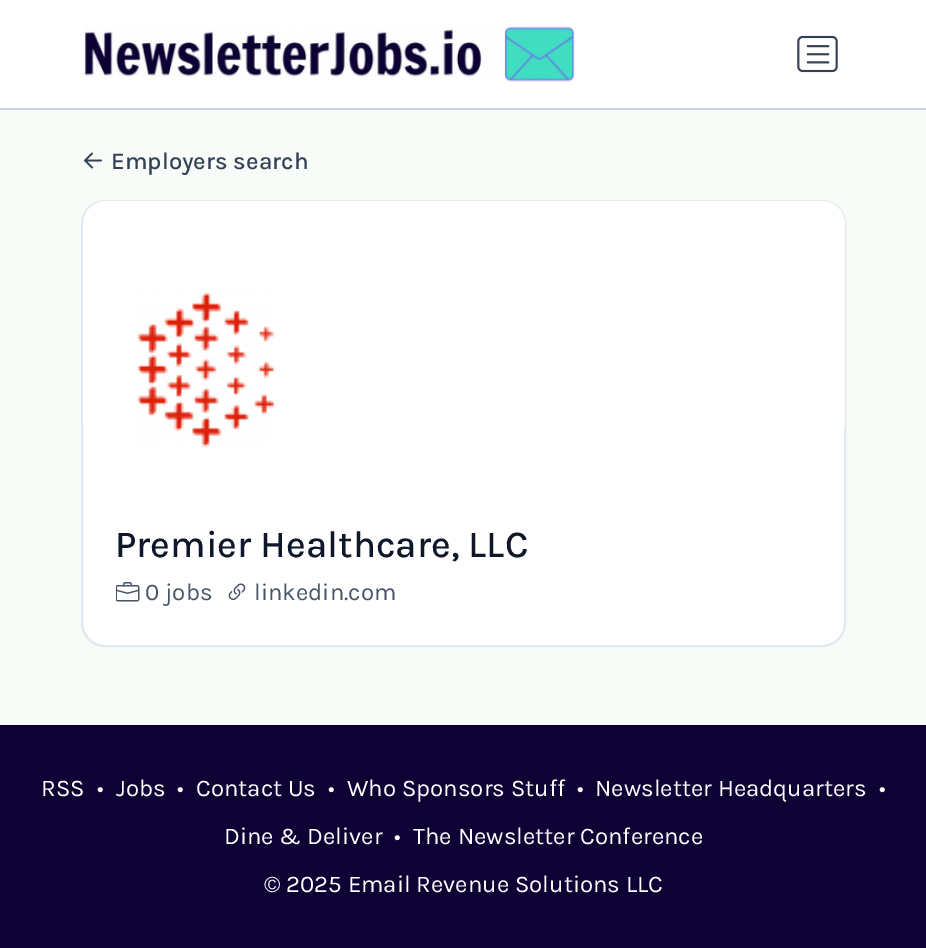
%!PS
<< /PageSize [926 948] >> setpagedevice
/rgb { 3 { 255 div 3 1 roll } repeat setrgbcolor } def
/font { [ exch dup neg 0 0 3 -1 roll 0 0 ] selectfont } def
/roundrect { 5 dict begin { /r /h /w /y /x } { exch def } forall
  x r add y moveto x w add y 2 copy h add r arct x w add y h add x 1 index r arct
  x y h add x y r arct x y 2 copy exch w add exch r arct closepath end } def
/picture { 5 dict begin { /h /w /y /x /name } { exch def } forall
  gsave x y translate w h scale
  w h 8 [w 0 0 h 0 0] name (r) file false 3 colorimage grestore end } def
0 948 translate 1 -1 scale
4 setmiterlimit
249 251 249 rgb
0 0 926 948 rectfill
255 255 255 rgb
0 0 926 108 rectfill
203 213 225 rgb
0 108 926 2 rectfill
(img/1.rgb) 84 26 491 56 picture
(img/2.rgb) 797 35 41 38 picture
(img/3.rgb) 84 152 18 17 picture
255 255 255 rgb
82 201 763 445 23 roundrect gsave fill grestore
226 232 240 rgb
2 setlinewidth
stroke
255 255 255 rgb
106 201 moveto 822 201 lineto 834.5 201 845 211.5 845 224 curveto 845 426 lineto 83 426 lineto 83 224 lineto 83 211.5 93.5 201 106 201 curveto closepath fill
(img/4.rgb) 137 292 138 156 picture
(img/5.rgb) 116 582 24 20 picture
(img/6.rgb) 228 583 18 18 picture
14 1 52 rgb
0 725 926 223 rectfill
/Karla-Medium 24 font
51 65 85 rgb
111 169 moveto (Employers search) show
/Karla-Medium 37.75 font
15 23 42 rgb
115 557 moveto (Premier Healthcare, LLC) show
/Karla-Regular 24 font
71 85 105 rgb
145 600 moveto (0 jobs) show
254 600 moveto (linkedin.com) show
255 255 255 rgb
[
  [(RSS) 41 796]
  [(•) 97 796]
  [(Jobs) 116 796]
  [(•) 177 796]
  [(Contact Us) 196 796]
  [(•) 328 796]
  [(Who Sponsors Stuff) 347 796]
  [(•) 577 796]
  [(Newsletter Headquarters) 595 796]
  [(•) 879 796]
  [(Dine & Deliver) 224 844]
  [(•) 394 844]
  [(The Newsletter Conference) 413 844]
  [(© 2025 Email Revenue Solutions LLC) 264 892]
] { aload pop moveto show } forall
showpage
